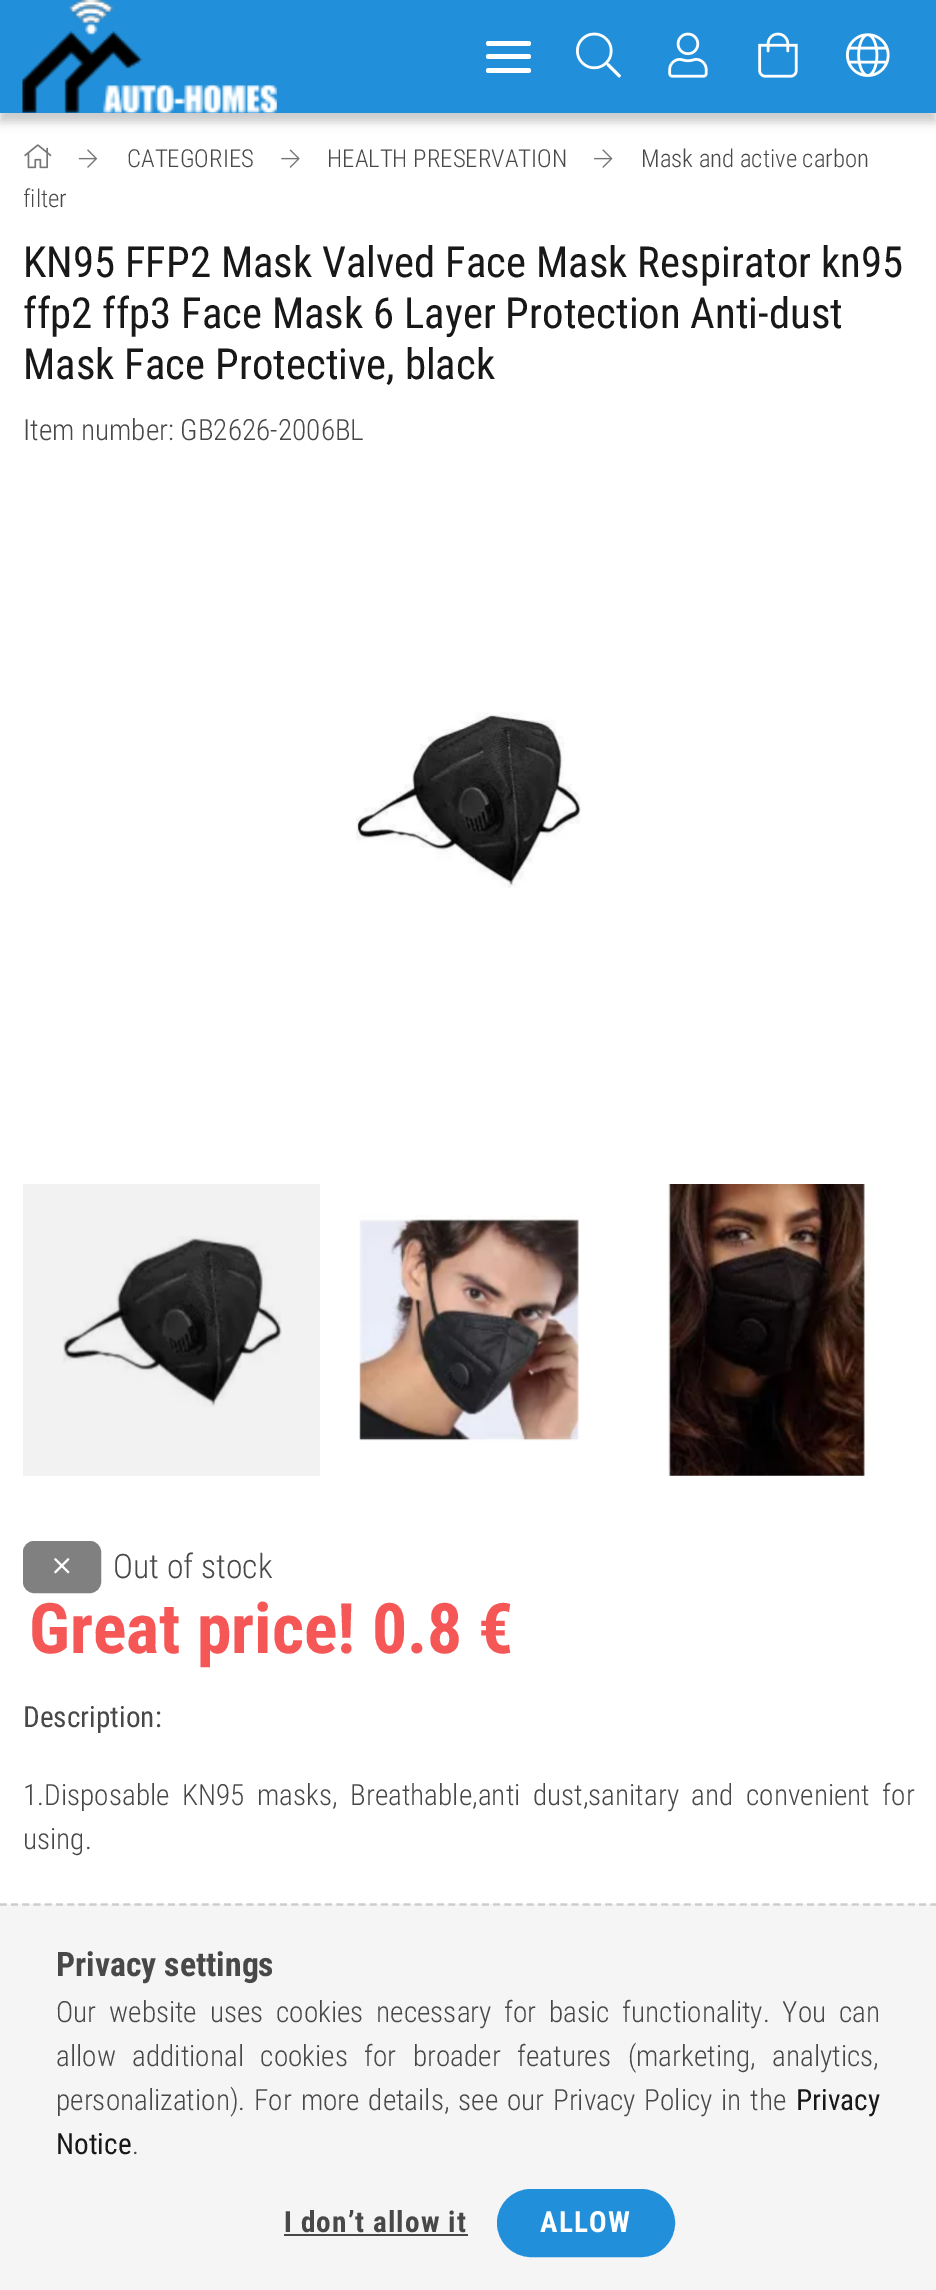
%!PS
<< /PageSize [936 2290] /PageUsesTransparency true >> setpagedevice
/rgb { 3 { 255 div 3 1 roll } repeat setrgbcolor } def
/font { [ exch dup neg 0 0 3 -1 roll 0 0 ] selectfont } def
/alpha { dup .setfillconstantalpha .setstrokeconstantalpha } def
/roundrect { 5 dict begin { /r /h /w /y /x } { exch def } forall
  x r add y moveto x w add y 2 copy h add r arct x w add y h add x 1 index r arct
  x y h add x y r arct x y 2 copy exch w add exch r arct closepath end } def
/shadow { 12 dict begin { /a /b /q /h /w /y /x } { exch def } forall gsave /was 0 def
  9 -2 -9 { dup b mul 4 div /e exch def 1 sub .425 mul 2.718 exch exp 1 add a .99 .min exch div /now exch def
    1 1 now sub 1 was sub div sub alpha /was now def
    w h .min e 2 mul add 0 gt { x e sub y e sub w e 2 mul add h e 2 mul add
      q e add b .6 mul add w h .min 2 div e add .min 0 .max roundrect fill } if } for grestore end } def
/picture { 5 dict begin { /h /w /y /x /name } { exch def } forall
  gsave x y translate w h scale
  w h 8 [w 0 0 h 0 0] name (r) file false 3 colorimage grestore end } def
0 .pushpdf14devicefilter
0 2290 translate 1 -1 scale
4 setmiterlimit
255 255 255 rgb
0 0 936 2290 rectfill
242 242 242 rgb
23 1184 297 292 rectfill
0 0 0 rgb
0 9 936 113 0 4.5 0.2 shadow
33 143 217 rgb
0 0 936 113 rectfill
(img/1.rgb) 22 0 255 113 picture
255 255 255 rgb
486 41 45 5 2.5 roundrect fill
486 54 45 5 2.5 roundrect fill
486 68 45 5 2.5 roundrect fill
(img/2.rgb) 576 32 45 46 picture
(img/3.rgb) 668 32 40 46 picture
(img/4.rgb) 758 32 40 46 picture
(img/5.rgb) 846 33 44 44 picture
(img/6.rgb) 24 144 28 25 picture
(img/7.rgb) 78 149 20 19 picture
(img/8.rgb) 281 149 19 19 picture
(img/9.rgb) 594 149 19 19 picture
(img/10.rgb) 356 712 225 176 picture
(img/11.rgb) 63 1236 219 171 picture
(img/12.rgb) 359 1215 220 226 picture
(img/13.rgb) 668 1184 203 292 picture
128 128 128 rgb
24 1542 76 50 10 roundrect gsave fill grestore
2 setlinewidth
stroke
(img/14.rgb) 54 1558 16 16 picture
245 245 245 rgb
0 1904 936 386 rectfill
204 204 204 rgb
2.2 setlinewidth
[6.75 4.46] 0 setdash
0 1904.5 moveto 936 1904.5 lineto stroke
72 72 72 rgb
284 2234 184 2 rectfill
33 143 217 rgb
498 2190 176 66 33 roundrect gsave fill grestore
2 setlinewidth
[] 0 setdash
stroke
/RobotoCondensed-Light 24.75 font
72 72 72 rgb
[
  [(CATEGORIES) 127 167]
  [(HEALTH PRESERVATION) 327 167]
  [(Mask and active carbon) 641 167]
  [(filter) 23 207]
] { aload pop moveto show } forall
/RobotoCondensed-Regular 42.75 font
24 24 24 rgb
[
  [(KN95 FFP2 Mask Valved Face Mask Respirator kn95) 23 277]
  [(ffp2 ffp3 Face Mask 6 Layer Protection Anti-dust) 23 328]
  [(Mask Face Protective, black) 23 379]
] { aload pop moveto show } forall
/RobotoCondensed-Light 29.25 font
72 72 72 rgb
23 440 moveto (Item number: GB2626-2006BL) show
/RobotoCondensed-Light 33.75 font
113 1578 moveto (Out of stock) show
/RobotoCondensed-Bold 69.75 font
245 86 86 rgb
29 1653 moveto (Great price! 0.8 €) show
/RobotoCondensed-Regular 29.25 font
72 72 72 rgb
23 1727 moveto (Description:) show
/RobotoCondensed-Light 29.25 font
23 1805 moveto 6 0 32 (1.Disposable KN95 masks, Breathable,anti dust,sanitary and convenient for) widthshow
23 1849 moveto (using.) show
/RobotoCondensed-Bold 33.75 font
56 1976 moveto (Privacy settings) show
/RobotoCondensed-Light 29.25 font
56 2022 moveto 6.25 0 32 (Our website uses cookies necessary for basic functionality. You can) widthshow
56 2066 moveto 10 0 32 (allow additional cookies for broader features \(marketing, analytics,) widthshow
56 2110 moveto 2.25 0 32 (personalization\). For more details, see our Privacy Policy in the) widthshow
/RobotoCondensed-Regular 29.25 font
24 24 24 rgb
796 2110 moveto (Privacy) show
56 2154 moveto (Notice) show
/RobotoCondensed-Light 29.25 font
72 72 72 rgb
132 2154 moveto (.) show
/RobotoCondensed-Bold 29.25 font
284 2232 moveto 1.1 0 (I don’t allow it) ashow
255 255 255 rgb
540 2232 moveto 1.1 0 (ALLOW) ashow
.poppdf14devicefilter showpage
